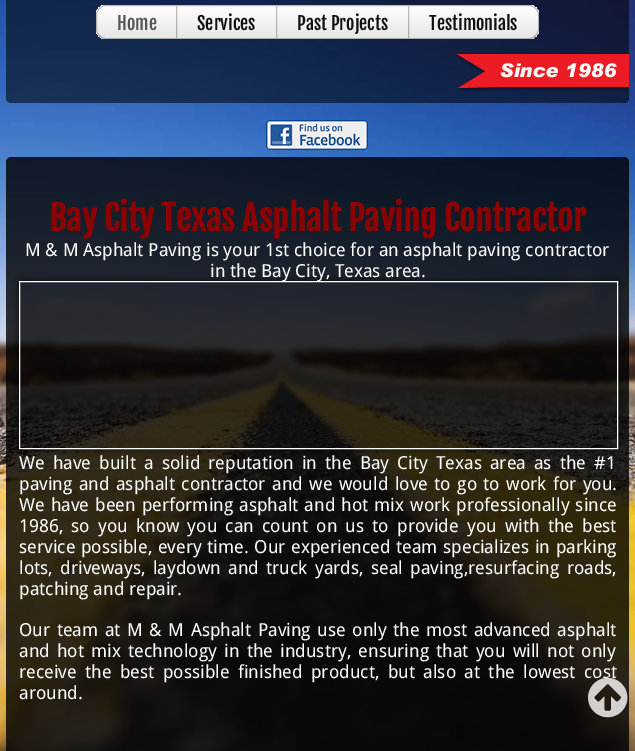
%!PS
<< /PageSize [635 751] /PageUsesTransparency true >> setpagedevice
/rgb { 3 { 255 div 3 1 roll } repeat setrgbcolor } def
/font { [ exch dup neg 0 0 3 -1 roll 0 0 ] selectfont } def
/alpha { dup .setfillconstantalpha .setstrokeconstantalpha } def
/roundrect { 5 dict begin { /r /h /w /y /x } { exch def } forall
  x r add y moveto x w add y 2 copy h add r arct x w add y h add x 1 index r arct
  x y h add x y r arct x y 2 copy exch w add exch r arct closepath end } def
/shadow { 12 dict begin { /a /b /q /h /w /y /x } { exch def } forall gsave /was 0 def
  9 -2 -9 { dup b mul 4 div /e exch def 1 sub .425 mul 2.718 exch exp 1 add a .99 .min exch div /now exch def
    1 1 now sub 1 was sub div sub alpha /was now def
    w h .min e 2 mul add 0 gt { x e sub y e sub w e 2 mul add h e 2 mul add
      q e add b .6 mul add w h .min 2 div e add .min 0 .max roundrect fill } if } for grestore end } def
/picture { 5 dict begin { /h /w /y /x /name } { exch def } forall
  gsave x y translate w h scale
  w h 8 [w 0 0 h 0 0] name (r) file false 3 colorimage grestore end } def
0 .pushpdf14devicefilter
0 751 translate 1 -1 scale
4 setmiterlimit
255 255 255 rgb
0 0 635 751 rectfill
(img/1.rgb) 0 0 635 751 picture
0.55 alpha
0 0 0 rgb
6 -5 moveto 629 -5 lineto 629 98 lineto 629 101 627 103 624 103 curveto 11 103 lineto 8 103 6 101 6 98 curveto closepath fill
1 alpha
gsave 106 5 moveto 177 5 lineto 177 39 lineto 106 39 lineto 100.5 39 96 34.5 96 29 curveto 96 15 lineto 96 9.5 100.5 5 106 5 curveto closepath clip newpath
<< /ShadingType 2 /ColorSpace /DeviceRGB /Coords [137 5 137 39] /Extend [true true] /Function << /FunctionType 2 /Domain [0 1] /C0 [1 1 1] /C1 [0.902 0.902 0.902] /N 1 >> >> shfill grestore
0.25 alpha
106 5.5 moveto 176.5 5.5 lineto 176.5 38.5 lineto 106 38.5 lineto 101 38.5 96.5 34 96.5 29 curveto 96.5 15 lineto 96.5 10 101 5.5 106 5.5 curveto closepath stroke
1 alpha
gsave 176 5 moveto 276 5 lineto 276 39 lineto 176 39 lineto closepath clip newpath
<< /ShadingType 2 /ColorSpace /DeviceRGB /Coords [227 5 227 39] /Extend [true true] /Function << /FunctionType 2 /Domain [0 1] /C0 [1 1 1] /C1 [0.902 0.902 0.902] /N 1 >> >> shfill grestore
0.25 alpha
176.5 5.5 100 33 rectstroke
1 alpha
gsave 276 5 moveto 408 5 lineto 408 39 lineto 276 39 lineto closepath clip newpath
<< /ShadingType 2 /ColorSpace /DeviceRGB /Coords [343 5 343 39] /Extend [true true] /Function << /FunctionType 2 /Domain [0 1] /C0 [1 1 1] /C1 [0.902 0.902 0.902] /N 1 >> >> shfill grestore
0.25 alpha
276.5 5.5 132 33 rectstroke
1 alpha
gsave 408 5 moveto 529 5 lineto 534.5 5 539 9.5 539 15 curveto 539 29 lineto 539 34.5 534.5 39 529 39 curveto 408 39 lineto closepath clip newpath
<< /ShadingType 2 /ColorSpace /DeviceRGB /Coords [474 5 474 39] /Extend [true true] /Function << /FunctionType 2 /Domain [0 1] /C0 [1 1 1] /C1 [0.902 0.902 0.902] /N 1 >> >> shfill grestore
0.25 alpha
408.5 5.5 moveto 529 5.5 lineto 534 5.5 538.5 10 538.5 15 curveto 538.5 29 lineto 538.5 34 534 38.5 529 38.5 curveto 408.5 38.5 lineto closepath stroke
1 alpha
(img/2.rgb) 457 52 172 40 picture
(img/3.rgb) 266 120 102 30 picture
0.8 alpha
6 157 623 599 5 roundrect fill
gsave
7 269 moveto 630 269 lineto 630 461 lineto 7 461 lineto closepath 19 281 moveto 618 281 lineto 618 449 lineto 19 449 lineto closepath eoclip newpath
1 alpha
19 281 599 168 0 3.5 0.75 shadow
grestore
1 alpha
255 255 255 rgb
19.5 281.5 598 167 rectstroke
/FjallaOne-Regular 18 font
85 85 85 rgb
117 30 moveto (Home) show
17 17 17 rgb
[
  [(Services) 197 30]
  [(Past Projects) 297 30]
  [(Testimonials) 429 30]
] { aload pop moveto show } forall
/FjallaOne-Bold 34 font
140 0 0 rgb
49 231 moveto (Bay City Texas Asphalt Paving Contractor) show
/DroidSans-Regular 18 font
255 255 255 rgb
25 256 moveto (M & M Asphalt Paving is your 1st choice for an asphalt paving contractor) show
210 277 moveto (in the Bay City, Texas area.) show
19 469 moveto 3.5 0 32 (We have built a solid reputation in the Bay City Texas area as the #1) widthshow
19 490 moveto 1.75 0 32 (paving and asphalt contractor and we would love to go to work for you.) widthshow
19 511 moveto 1.4 0 32 (We have been performing asphalt and hot mix work professionally since) widthshow
19 532 moveto 3.5 0 32 (1986, so you know you can count on us to provide you with the best) widthshow
19 553 moveto 1 0 32 (service possible, every time. Our experienced team specializes in parking) widthshow
19 574 moveto 2.75 0 32 (lots, driveways, laydown and truck yards, seal paving,resurfacing roads,) widthshow
19 595 moveto (patching and repair.) show
19 636 moveto 1.9 0 32 (Our team at M & M Asphalt Paving use only the most advanced asphalt) widthshow
19 657 moveto 2.5 0 32 (and hot mix technology in the industry, ensuring that you will not only) widthshow
19 678 moveto 3.75 0 32 (receive the best possible finished product, but also at the lowest cost) widthshow
19 699 moveto (around.) show
(img/4.rgb) 588 677 40 41 picture
.poppdf14devicefilter showpage
